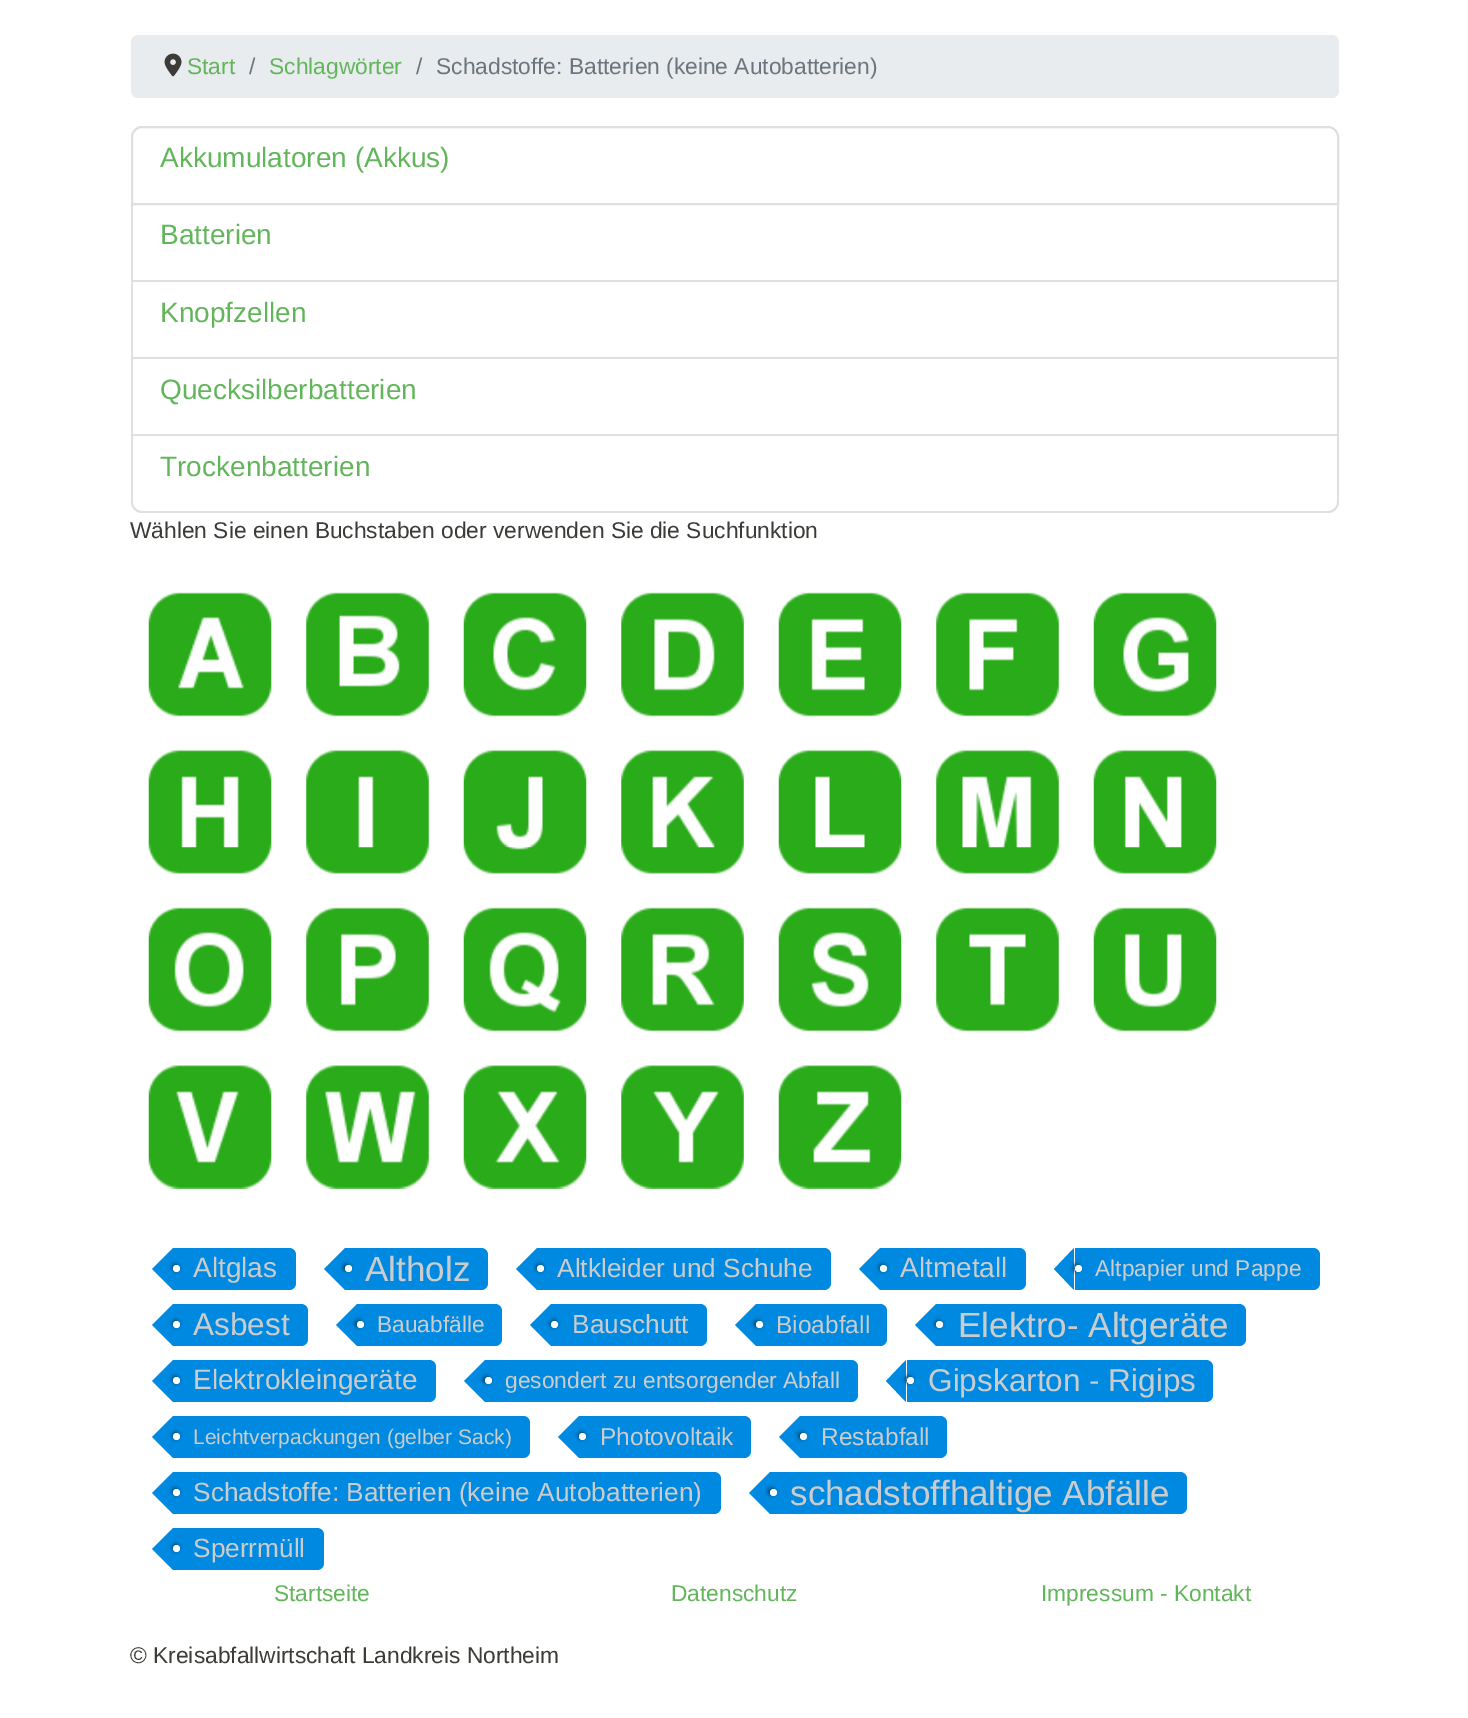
%!PS
<< /PageSize [1468 1718] /PageUsesTransparency true >> setpagedevice
/rgb { 3 { 255 div 3 1 roll } repeat setrgbcolor } def
/font { [ exch dup neg 0 0 3 -1 roll 0 0 ] selectfont } def
/alpha { dup .setfillconstantalpha .setstrokeconstantalpha } def
/circle { newpath 0 360 arc closepath } def
/roundrect { 5 dict begin { /r /h /w /y /x } { exch def } forall
  x r add y moveto x w add y 2 copy h add r arct x w add y h add x 1 index r arct
  x y h add x y r arct x y 2 copy exch w add exch r arct closepath end } def
/shadow { 12 dict begin { /a /b /q /h /w /y /x } { exch def } forall gsave /was 0 def
  9 -2 -9 { dup b mul 4 div /e exch def 1 sub .425 mul 2.718 exch exp 1 add a .99 .min exch div /now exch def
    1 1 now sub 1 was sub div sub alpha /was now def
    w h .min e 2 mul add 0 gt { x e sub y e sub w e 2 mul add h e 2 mul add
      q e add b .6 mul add w h .min 2 div e add .min 0 .max roundrect fill } if } for grestore end } def
/picture { 5 dict begin { /h /w /y /x /name } { exch def } forall
  gsave x y translate w h scale
  w h 8 [w 0 0 h 0 0] name (r) file false 3 colorimage grestore end } def
0 .pushpdf14devicefilter
0 1718 translate 1 -1 scale
4 setmiterlimit
255 255 255 rgb
0 0 1468 1718 rectfill
233 236 239 rgb
131 35 1208 63 7 roundrect fill
(img/1.rgb) 164 53 18 24 picture
223 223 223 rgb
2 setlinewidth
142 127 moveto 1328 127 lineto 1333.5 127 1338 131.5 1338 137 curveto 1338 204 lineto 132 204 lineto 132 137 lineto 132 131.5 136.5 127 142 127 curveto closepath stroke
1339 205 moveto 1339 282 lineto 1337 280 lineto 1337 205 lineto closepath fill
0.12 alpha
0 0 0 rgb
1339 282 moveto 131 282 lineto 133 280 lineto 1337 280 lineto closepath fill
131 282 moveto 131 205 lineto 133 205 lineto 133 280 lineto closepath fill
1 alpha
223 223 223 rgb
1339 282 moveto 1339 359 lineto 1337 357 lineto 1337 282 lineto closepath fill
0.12 alpha
0 0 0 rgb
1339 359 moveto 131 359 lineto 133 357 lineto 1337 357 lineto closepath fill
131 359 moveto 131 282 lineto 133 282 lineto 133 357 lineto closepath fill
1 alpha
223 223 223 rgb
1339 359 moveto 1339 436 lineto 1337 434 lineto 1337 359 lineto closepath fill
0.12 alpha
0 0 0 rgb
1339 436 moveto 131 436 lineto 133 434 lineto 1337 434 lineto closepath fill
131 436 moveto 131 359 lineto 133 359 lineto 133 434 lineto closepath fill
1 alpha
223 223 223 rgb
131 436 moveto 1339 436 lineto 1339 502 lineto 1339 508 1334 513 1328 513 curveto 142 513 lineto 136 513 131 508 131 502 curveto closepath 133 436 moveto 1337 436 lineto 1337 502 lineto 1337 507 1333 511 1328 511 curveto 142 511 lineto 137 511 133 507 133 502 curveto closepath eofill
(img/2.rgb) 148 592 124 125 picture
(img/3.rgb) 306 592 123 125 picture
(img/4.rgb) 463 592 124 125 picture
(img/5.rgb) 621 592 123 125 picture
(img/6.rgb) 778 592 124 125 picture
(img/7.rgb) 936 592 123 125 picture
(img/8.rgb) 1093 592 124 125 picture
(img/9.rgb) 148 750 124 124 picture
(img/10.rgb) 306 750 123 124 picture
(img/11.rgb) 463 750 124 124 picture
(img/12.rgb) 621 750 123 124 picture
(img/13.rgb) 778 750 124 124 picture
(img/14.rgb) 936 750 123 124 picture
(img/15.rgb) 1093 750 124 124 picture
(img/16.rgb) 148 907 124 125 picture
(img/17.rgb) 306 907 123 125 picture
(img/18.rgb) 463 907 124 125 picture
(img/19.rgb) 621 907 123 125 picture
(img/20.rgb) 778 907 124 125 picture
(img/21.rgb) 936 907 123 125 picture
(img/22.rgb) 1093 907 124 125 picture
(img/23.rgb) 148 1065 124 124 picture
(img/24.rgb) 306 1065 123 124 picture
(img/25.rgb) 463 1065 124 124 picture
(img/26.rgb) 621 1065 123 124 picture
(img/27.rgb) 778 1065 124 124 picture
0 137 224 rgb
173 1248 moveto 289 1248 lineto 293 1248 296 1251 296 1255 curveto 296 1283 lineto 296 1287 293 1290 289 1290 curveto 173 1290 lineto closepath fill
173 1248 moveto 173 1290 lineto 152 1269 lineto closepath fill
0 73 119 rgb
172 1264 7 7 3.5 2 1 shadow
255 255 255 rgb
176.5 1268.5 3.5 circle fill
0 137 224 rgb
345 1248 moveto 481 1248 lineto 485 1248 488 1251 488 1255 curveto 488 1283 lineto 488 1287 485 1290 481 1290 curveto 345 1290 lineto closepath fill
345 1248 moveto 345 1290 lineto 324 1269 lineto closepath fill
0 73 119 rgb
343 1264 7 7 3.5 2 1 shadow
255 255 255 rgb
348.5 1268.5 3.5 circle fill
0 137 224 rgb
537 1248 moveto 824 1248 lineto 828 1248 831 1251 831 1255 curveto 831 1283 lineto 831 1287 828 1290 824 1290 curveto 537 1290 lineto closepath fill
537 1248 moveto 537 1290 lineto 516 1269 lineto closepath fill
0 73 119 rgb
536 1264 7 7 3.5 2 1 shadow
255 255 255 rgb
540.5 1268.5 3.5 circle fill
0 137 224 rgb
880 1248 moveto 1019 1248 lineto 1023 1248 1026 1251 1026 1255 curveto 1026 1283 lineto 1026 1287 1023 1290 1019 1290 curveto 880 1290 lineto closepath fill
880 1248 moveto 880 1290 lineto 859 1269 lineto closepath fill
0 73 119 rgb
879 1264 7 7 3.5 2 1 shadow
255 255 255 rgb
883.5 1268.5 3.5 circle fill
0 137 224 rgb
1075 1248 moveto 1313 1248 lineto 1317 1248 1320 1251 1320 1255 curveto 1320 1283 lineto 1320 1287 1317 1290 1313 1290 curveto 1075 1290 lineto closepath fill
1074 1248 moveto 1074 1290 lineto 1054 1269 lineto closepath fill
0 73 119 rgb
1073 1264 7 7 3.5 2 1 shadow
255 255 255 rgb
1078.5 1268.5 3.5 circle fill
0 137 224 rgb
173 1304 moveto 301 1304 lineto 305 1304 308 1307 308 1311 curveto 308 1339 lineto 308 1343 305 1346 301 1346 curveto 173 1346 lineto closepath fill
173 1304 moveto 173 1346 lineto 152 1325 lineto closepath fill
0 73 119 rgb
172 1320 7 7 3.5 2 1 shadow
255 255 255 rgb
176.5 1324.5 3.5 circle fill
0 137 224 rgb
357 1304 moveto 495 1304 lineto 499 1304 502 1307 502 1311 curveto 502 1339 lineto 502 1343 499 1346 495 1346 curveto 357 1346 lineto closepath fill
357 1304 moveto 357 1346 lineto 336 1325 lineto closepath fill
0 73 119 rgb
355 1320 7 7 3.5 2 1 shadow
255 255 255 rgb
360.5 1324.5 3.5 circle fill
0 137 224 rgb
551 1304 moveto 700 1304 lineto 704 1304 707 1307 707 1311 curveto 707 1339 lineto 707 1343 704 1346 700 1346 curveto 551 1346 lineto closepath fill
551 1304 moveto 551 1346 lineto 530 1325 lineto closepath fill
0 73 119 rgb
550 1320 7 7 3.5 2 1 shadow
255 255 255 rgb
554.5 1324.5 3.5 circle fill
0 137 224 rgb
756 1304 moveto 880 1304 lineto 884 1304 887 1307 887 1311 curveto 887 1339 lineto 887 1343 884 1346 880 1346 curveto 756 1346 lineto closepath fill
756 1304 moveto 756 1346 lineto 735 1325 lineto closepath fill
0 73 119 rgb
754 1320 7 7 3.5 2 1 shadow
255 255 255 rgb
759.5 1324.5 3.5 circle fill
0 137 224 rgb
936 1304 moveto 1239 1304 lineto 1243 1304 1246 1307 1246 1311 curveto 1246 1339 lineto 1246 1343 1243 1346 1239 1346 curveto 936 1346 lineto closepath fill
936 1304 moveto 936 1346 lineto 915 1325 lineto closepath fill
0 73 119 rgb
935 1320 7 7 3.5 2 1 shadow
255 255 255 rgb
939.5 1324.5 3.5 circle fill
0 137 224 rgb
173 1360 moveto 429 1360 lineto 433 1360 436 1363 436 1367 curveto 436 1395 lineto 436 1399 433 1402 429 1402 curveto 173 1402 lineto closepath fill
173 1360 moveto 173 1402 lineto 152 1381 lineto closepath fill
0 73 119 rgb
172 1376 7 7 3.5 2 1 shadow
255 255 255 rgb
176.5 1380.5 3.5 circle fill
0 137 224 rgb
485 1360 moveto 851 1360 lineto 855 1360 858 1363 858 1367 curveto 858 1395 lineto 858 1399 855 1402 851 1402 curveto 485 1402 lineto closepath fill
485 1360 moveto 485 1402 lineto 464 1381 lineto closepath fill
0 73 119 rgb
483 1376 7 7 3.5 2 1 shadow
255 255 255 rgb
488.5 1380.5 3.5 circle fill
0 137 224 rgb
907 1360 moveto 1206 1360 lineto 1210 1360 1213 1363 1213 1367 curveto 1213 1395 lineto 1213 1399 1210 1402 1206 1402 curveto 907 1402 lineto closepath fill
906 1360 moveto 906 1402 lineto 886 1381 lineto closepath fill
0 73 119 rgb
905 1376 7 7 3.5 2 1 shadow
255 255 255 rgb
910.5 1380.5 3.5 circle fill
0 137 224 rgb
173 1416 moveto 523 1416 lineto 527 1416 530 1419 530 1423 curveto 530 1451 lineto 530 1455 527 1458 523 1458 curveto 173 1458 lineto closepath fill
173 1416 moveto 173 1458 lineto 152 1437 lineto closepath fill
0 73 119 rgb
172 1432 7 7 3.5 2 1 shadow
255 255 255 rgb
176.5 1436.5 3.5 circle fill
0 137 224 rgb
579 1416 moveto 744 1416 lineto 748 1416 751 1419 751 1423 curveto 751 1451 lineto 751 1455 748 1458 744 1458 curveto 579 1458 lineto closepath fill
579 1416 moveto 579 1458 lineto 558 1437 lineto closepath fill
0 73 119 rgb
578 1432 7 7 3.5 2 1 shadow
255 255 255 rgb
582.5 1436.5 3.5 circle fill
0 137 224 rgb
800 1416 moveto 940 1416 lineto 944 1416 947 1419 947 1423 curveto 947 1451 lineto 947 1455 944 1458 940 1458 curveto 800 1458 lineto closepath fill
800 1416 moveto 800 1458 lineto 779 1437 lineto closepath fill
0 73 119 rgb
798 1432 7 7 3.5 2 1 shadow
255 255 255 rgb
803.5 1436.5 3.5 circle fill
0 137 224 rgb
173 1472 moveto 714 1472 lineto 718 1472 721 1475 721 1479 curveto 721 1507 lineto 721 1511 718 1514 714 1514 curveto 173 1514 lineto closepath fill
173 1472 moveto 173 1514 lineto 152 1493 lineto closepath fill
0 73 119 rgb
172 1488 7 7 3.5 2 1 shadow
255 255 255 rgb
176.5 1492.5 3.5 circle fill
0 137 224 rgb
770 1472 moveto 1180 1472 lineto 1184 1472 1187 1475 1187 1479 curveto 1187 1507 lineto 1187 1511 1184 1514 1180 1514 curveto 770 1514 lineto closepath fill
770 1472 moveto 770 1514 lineto 749 1493 lineto closepath fill
0 73 119 rgb
768 1488 7 7 3.5 2 1 shadow
255 255 255 rgb
773.5 1492.5 3.5 circle fill
0 137 224 rgb
173 1528 moveto 317 1528 lineto 321 1528 324 1531 324 1535 curveto 324 1563 lineto 324 1567 321 1570 317 1570 curveto 173 1570 lineto closepath fill
173 1528 moveto 173 1570 lineto 152 1549 lineto closepath fill
0 73 119 rgb
172 1544 7 7 3.5 2 1 shadow
255 255 255 rgb
176.5 1548.5 3.5 circle fill
/LiberationSans-Regular 22.75 font
98 181 90 rgb
187 74 moveto (Start) show
108 117 125 rgb
249 74 moveto (/) show
98 181 90 rgb
269 74 moveto (Schlagwörter) show
108 117 125 rgb
416 74 moveto (/) show
436 74 moveto (Schadstoffe: Batterien \(keine Autobatterien\)) show
/LiberationSans-Regular 28 font
98 181 90 rgb
[
  [(Akkumulatoren \(Akkus\)) 160 167]
  [(Batterien) 160 244]
  [(Knopfzellen) 160 322]
  [(Quecksilberbatterien) 160 399]
  [(Trockenbatterien) 160 476]
] { aload pop moveto show } forall
/LiberationSans-Regular 22.75 font
61 59 56 rgb
130 538 moveto (Wählen Sie einen Buchstaben oder verwenden Sie die Suchfunktion) show
/LiberationSans-Regular 28 font
204 204 204 rgb
193 1277 moveto (Altglas) show
/LiberationSans-Regular 35 font
365 1281 moveto (Altholz) show
/LiberationSans-Regular 26.25 font
557 1277 moveto (Altkleider und Schuhe) show
/LiberationSans-Regular 28 font
900 1277 moveto (Altmetall) show
/LiberationSans-Regular 22.75 font
1095 1276 moveto (Altpapier und Pappe) show
/LiberationSans-Regular 31.5 font
193 1335 moveto (Asbest) show
/LiberationSans-Regular 22.75 font
377 1332 moveto (Bauabfälle) show
/LiberationSans-Regular 26.25 font
572 1333 moveto (Bauschutt) show
/LiberationSans-Regular 24.5 font
776 1333 moveto (Bioabfall) show
/LiberationSans-Regular 35 font
958 1337 moveto (Elektro- Altgeräte) show
/LiberationSans-Regular 28 font
193 1389 moveto (Elektrokleingeräte) show
/LiberationSans-Regular 22.75 font
505 1388 moveto (gesondert zu entsorgender Abfall) show
/LiberationSans-Regular 31.5 font
928 1391 moveto (Gipskarton - Rigips) show
/LiberationSans-Regular 21 font
193 1444 moveto (Leichtverpackungen \(gelber Sack\)) show
/LiberationSans-Regular 24.5 font
600 1445 moveto (Photovoltaik) show
821 1445 moveto (Restabfall) show
/LiberationSans-Regular 26.25 font
193 1501 moveto (Schadstoffe: Batterien \(keine Autobatterien\)) show
/LiberationSans-Regular 35 font
790 1505 moveto (schadstoffhaltige Abfälle) show
/LiberationSans-Regular 26.25 font
193 1557 moveto (Sperrmüll) show
/LiberationSans-Regular 22.75 font
98 181 90 rgb
[
  [(Startseite) 274 1601]
  [(Datenschutz) 671 1601]
  [(Impressum - Kontakt) 1041 1601]
] { aload pop moveto show } forall
61 59 56 rgb
130 1663 moveto (© Kreisabfallwirtschaft Landkreis Northeim) show
.poppdf14devicefilter showpage
